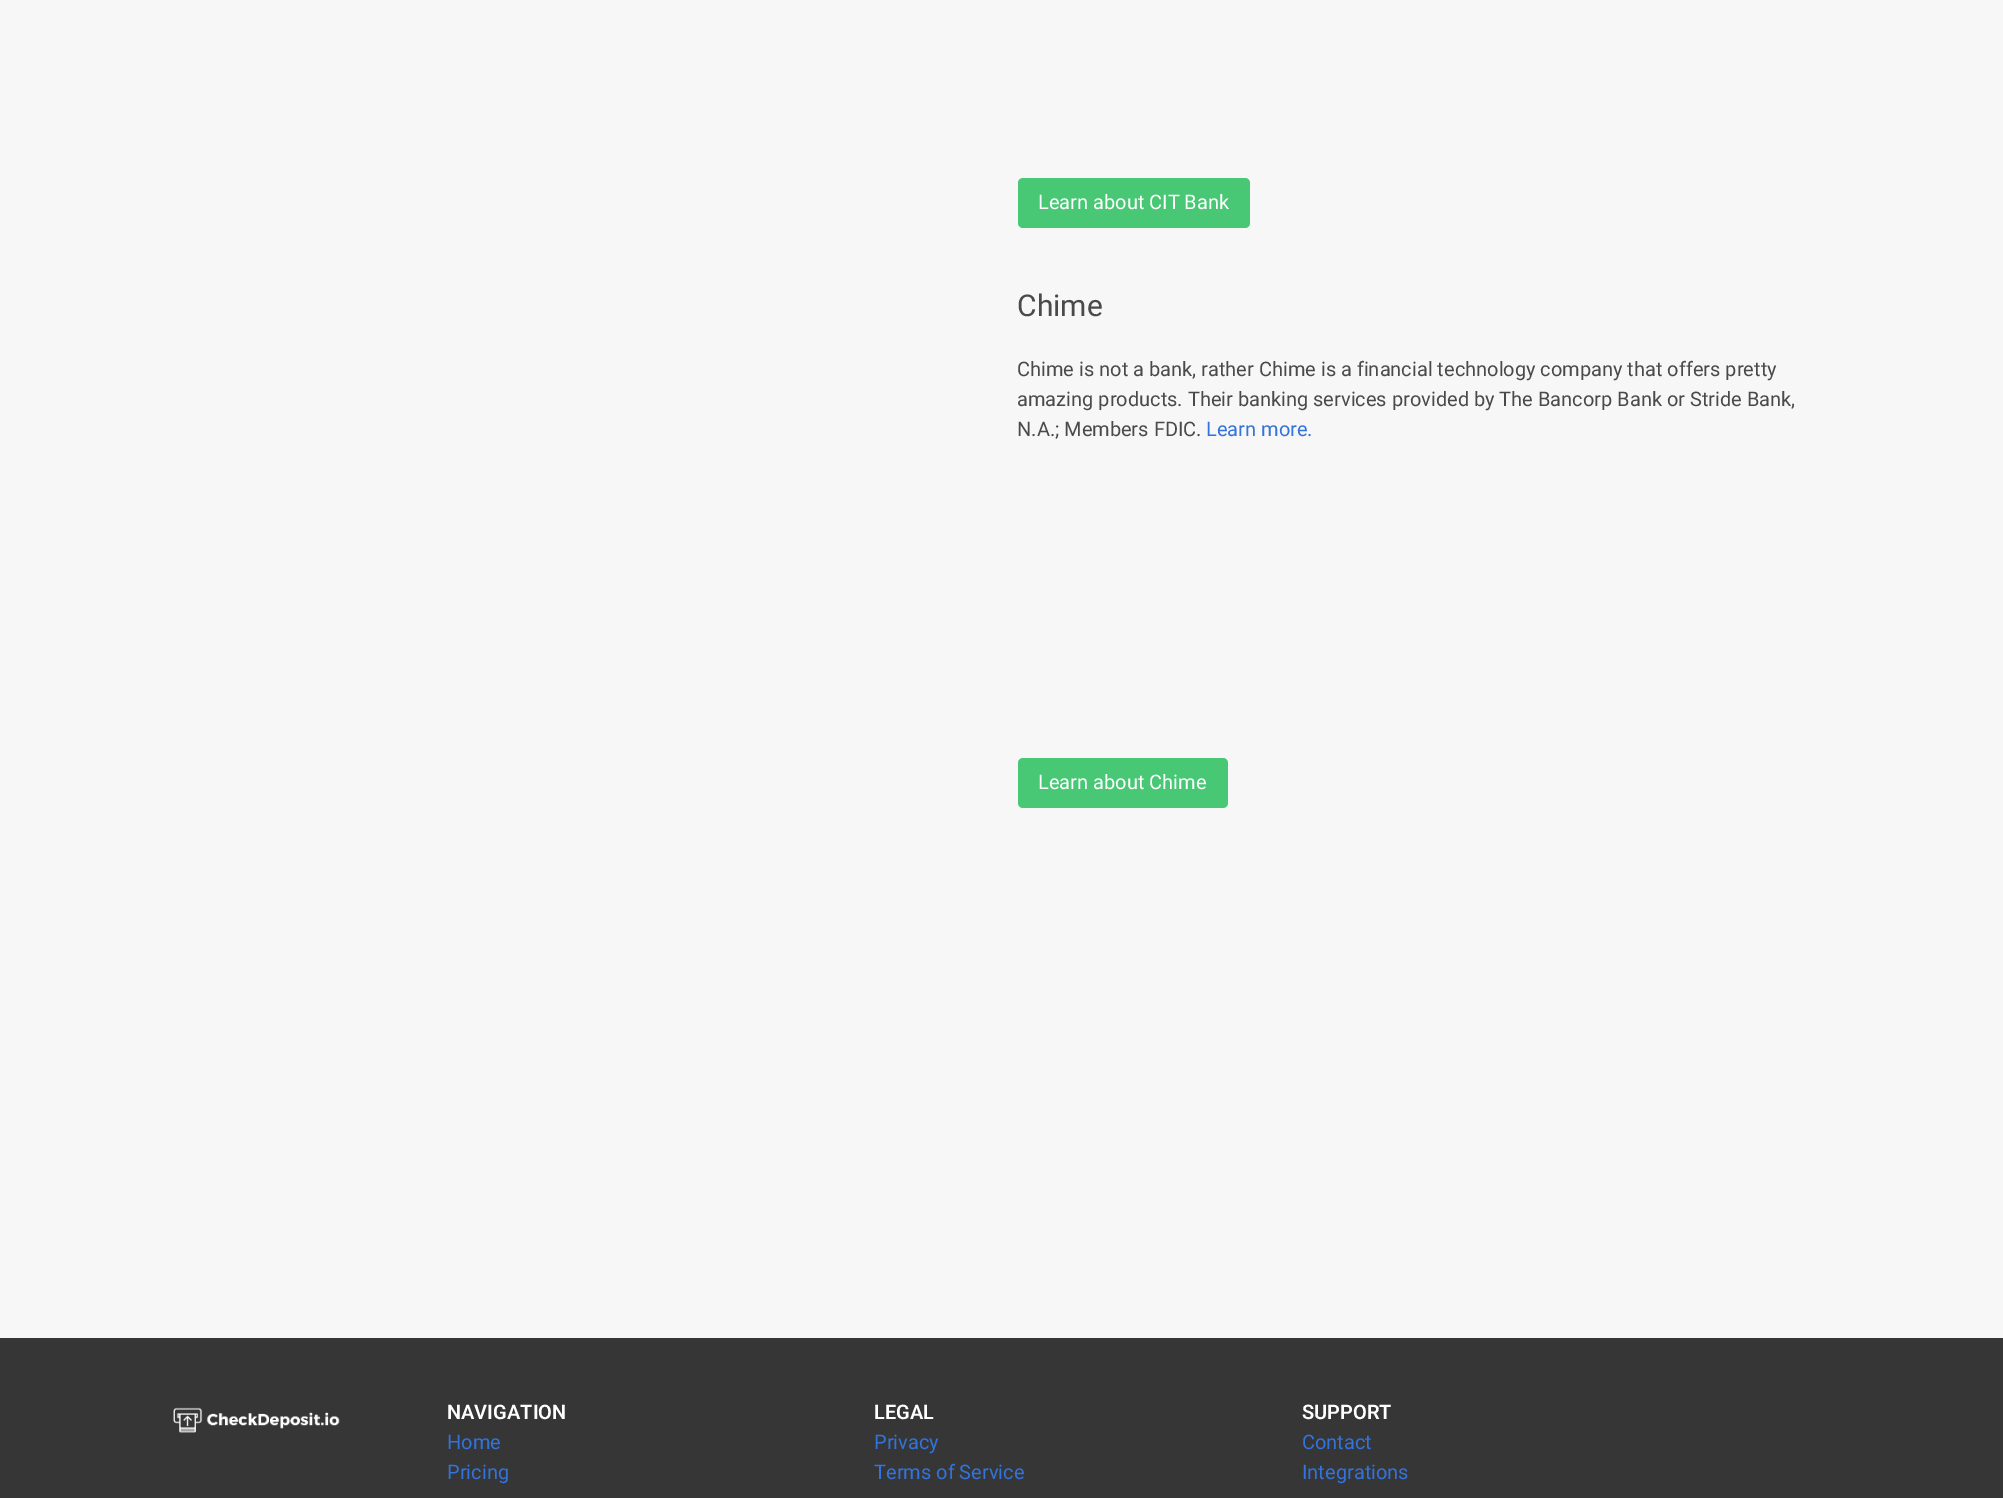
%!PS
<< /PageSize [2003 1498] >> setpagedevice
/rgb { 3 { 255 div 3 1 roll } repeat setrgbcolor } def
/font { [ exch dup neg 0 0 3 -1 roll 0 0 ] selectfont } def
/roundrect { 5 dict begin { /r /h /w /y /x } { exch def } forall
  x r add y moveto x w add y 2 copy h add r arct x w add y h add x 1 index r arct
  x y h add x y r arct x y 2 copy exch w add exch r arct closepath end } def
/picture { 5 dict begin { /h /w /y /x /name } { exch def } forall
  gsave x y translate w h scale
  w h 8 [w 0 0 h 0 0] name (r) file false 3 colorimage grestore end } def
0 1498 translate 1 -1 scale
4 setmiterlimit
247 247 248 rgb
0 0 2003 1498 rectfill
72 199 116 rgb
1018 178 232 50 5 roundrect fill
1018 758 210 50 5 roundrect fill
54 54 54 rgb
0 1338 2003 160 rectfill
(img/1.rgb) 173 1407 167 26 picture
/Roboto-Regular 20 font
255 255 255 rgb
1038 209 moveto (Learn about CIT Bank) show
/Roboto-Regular 30 font
74 74 74 rgb
1017 316 moveto (Chime) show
/Roboto-Regular 20 font
[
  [(Chime is not a bank, rather Chime is a financial technology company that offers pretty) 1017 376]
  [(amazing products. Their banking services provided by The Bancorp Bank or Stride Bank,) 1017 406]
  [(N.A.; Members FDIC.) 1017 436]
] { aload pop moveto show } forall
50 115 220 rgb
1206 436 moveto (Learn more.) show
255 255 255 rgb
1038 789 moveto (Learn about Chime) show
/Roboto-SemiBold 20 font
447 1419 moveto (NAVIGATION) show
/Roboto-Regular 20 font
50 115 220 rgb
447 1449 moveto (Home) show
447 1479 moveto (Pricing) show
/Roboto-SemiBold 20 font
255 255 255 rgb
874 1419 moveto (LEGAL) show
/Roboto-Regular 20 font
50 115 220 rgb
874 1449 moveto (Privacy) show
874 1479 moveto (Terms of Service) show
/Roboto-SemiBold 20 font
255 255 255 rgb
1302 1419 moveto (SUPPORT) show
/Roboto-Regular 20 font
50 115 220 rgb
1302 1449 moveto (Contact) show
1302 1479 moveto (Integrations) show
showpage
